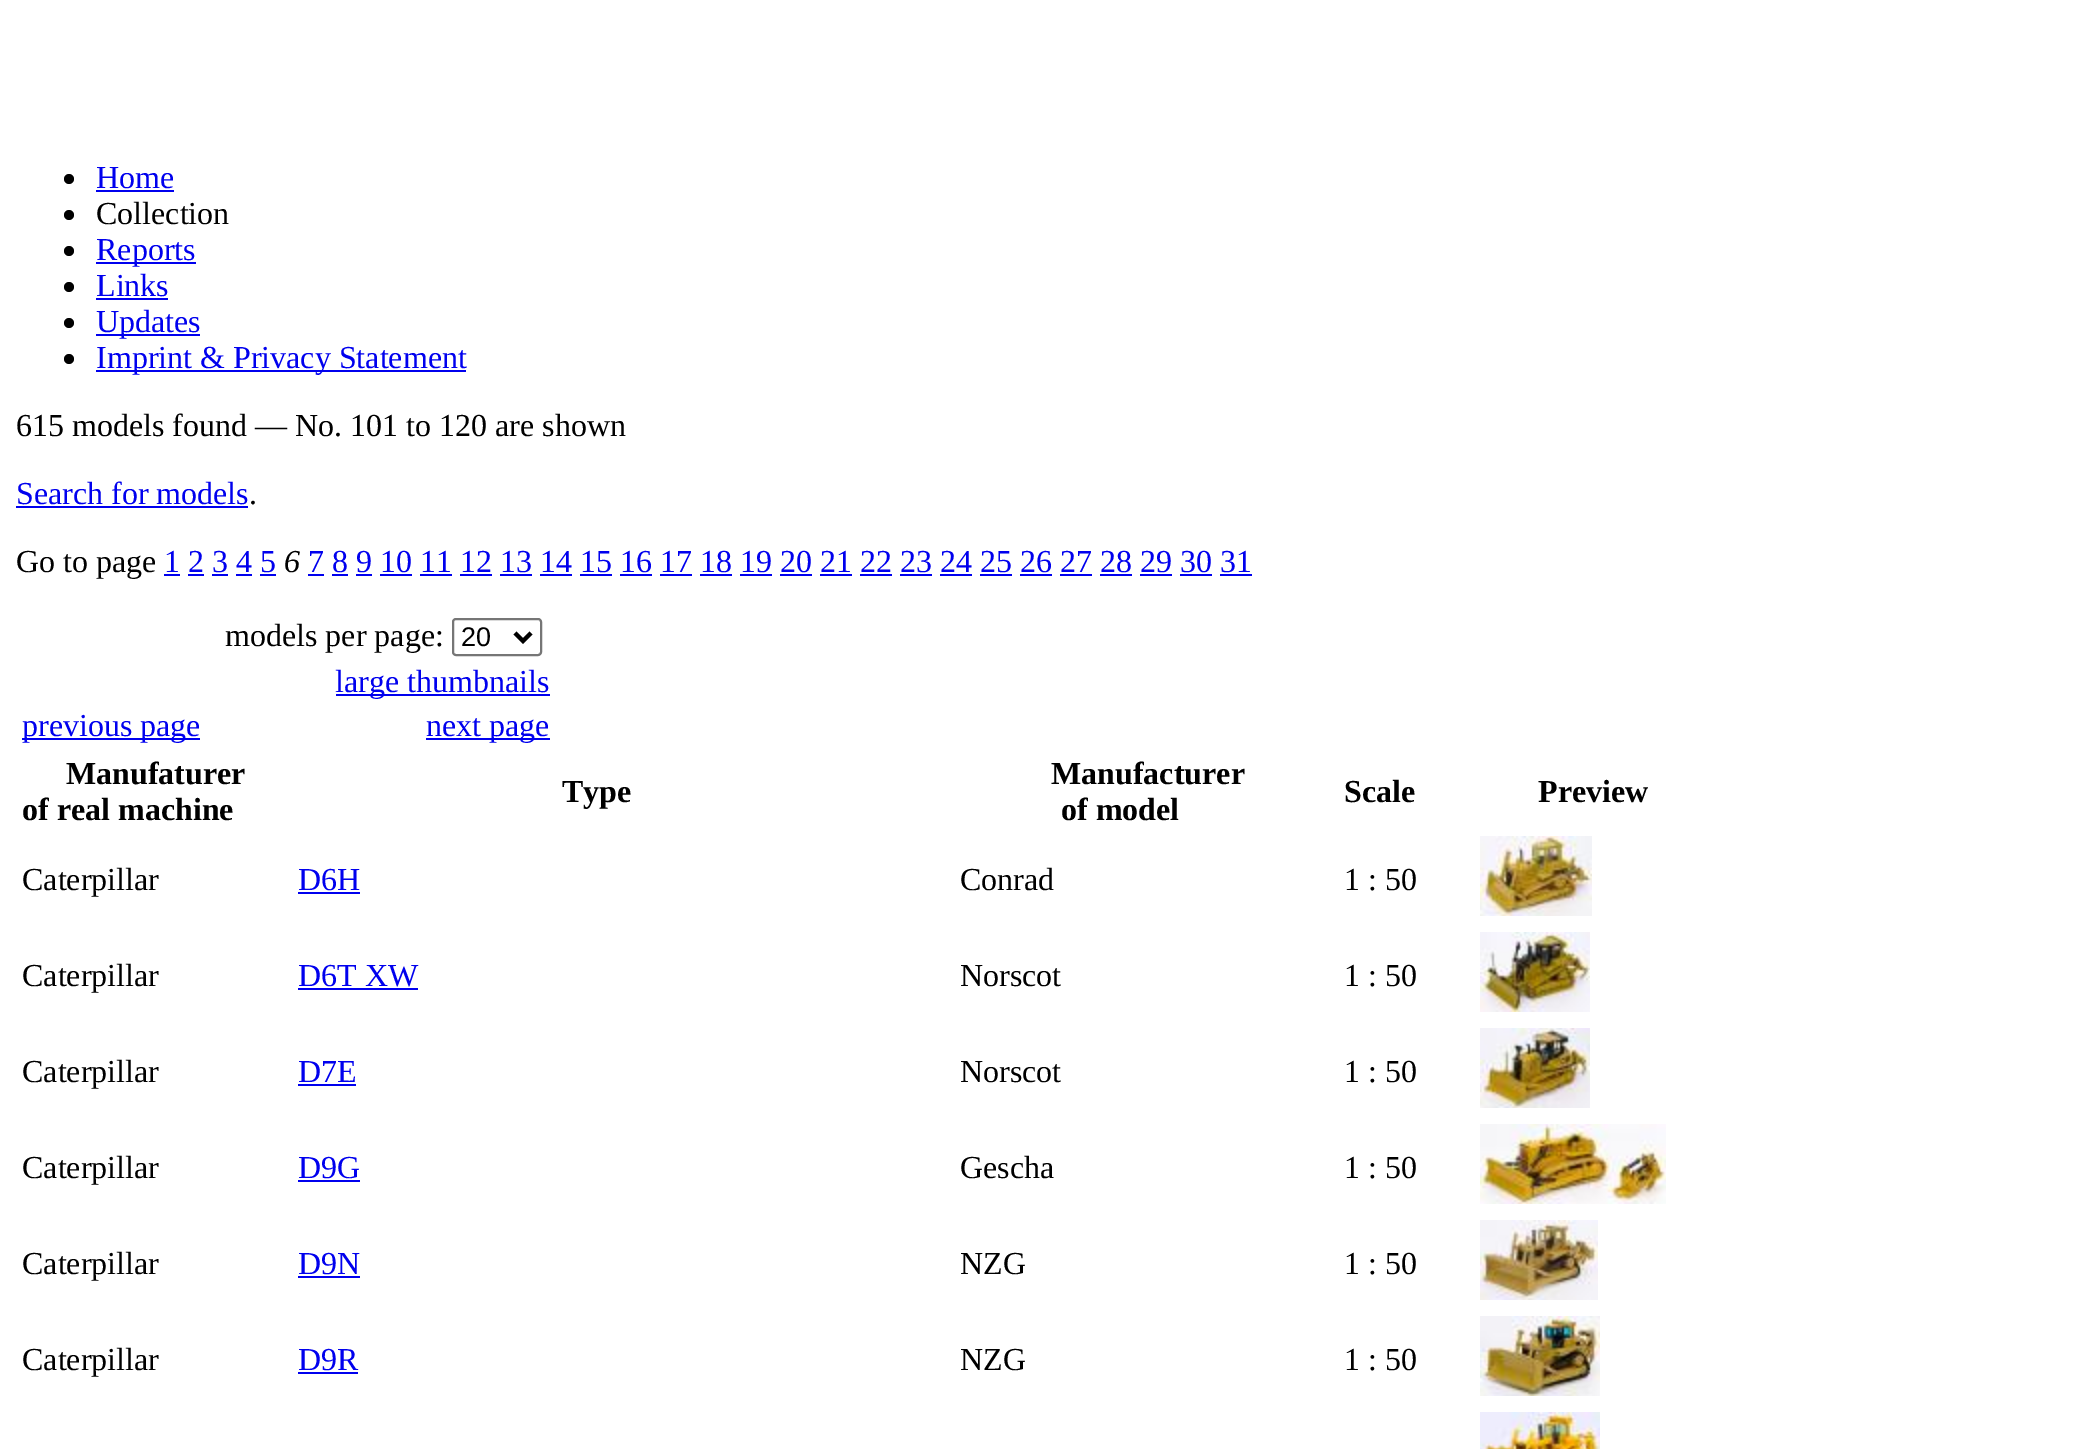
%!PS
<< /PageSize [2097 1449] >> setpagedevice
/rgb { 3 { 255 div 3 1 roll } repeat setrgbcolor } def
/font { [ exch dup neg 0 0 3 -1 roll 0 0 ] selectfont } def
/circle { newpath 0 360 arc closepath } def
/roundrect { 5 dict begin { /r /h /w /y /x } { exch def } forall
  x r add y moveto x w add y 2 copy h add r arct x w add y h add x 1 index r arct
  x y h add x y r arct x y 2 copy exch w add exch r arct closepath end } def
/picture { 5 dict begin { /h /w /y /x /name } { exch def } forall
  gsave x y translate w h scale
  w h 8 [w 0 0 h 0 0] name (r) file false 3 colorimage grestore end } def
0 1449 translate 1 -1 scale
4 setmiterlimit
255 255 255 rgb
0 0 2097 1449 rectfill
0 0 0 rgb
69 179 5 circle fill
0 0 238 rgb
96 190 78 2 rectfill
0 0 0 rgb
69 215 5 circle fill
69 251 5 circle fill
0 0 238 rgb
96 262 100 2 rectfill
0 0 0 rgb
69 287 5 circle fill
0 0 238 rgb
96 298 72 2 rectfill
0 0 0 rgb
69 323 5 circle fill
0 0 238 rgb
96 334 104 2 rectfill
0 0 0 rgb
69 359 5 circle fill
[
  [96 370 370 2 0 0 238]
  [16 506 232 2 0 0 238]
  [164 574 16 2 0 0 238]
  [308 574 16 2 0 0 238]
  [188 574 16 2 0 0 238]
  [212 574 16 2 0 0 238]
  [236 574 16 2 0 0 238]
  [260 574 16 2 0 0 238]
  [332 574 16 2 0 0 238]
  [356 574 16 2 0 0 238]
  [380 574 32 2 0 0 238]
  [420 574 32 2 0 0 238]
  [460 574 32 2 0 0 238]
  [500 574 32 2 0 0 238]
  [540 574 32 2 0 0 238]
  [580 574 32 2 0 0 238]
  [620 574 32 2 0 0 238]
  [660 574 32 2 0 0 238]
  [700 574 32 2 0 0 238]
  [740 574 32 2 0 0 238]
  [780 574 32 2 0 0 238]
  [820 574 32 2 0 0 238]
  [860 574 32 2 0 0 238]
  [900 574 32 2 0 0 238]
  [940 574 32 2 0 0 238]
  [980 574 32 2 0 0 238]
  [1020 574 32 2 0 0 238]
  [1060 574 32 2 0 0 238]
  [1100 574 32 2 0 0 238]
  [1140 574 32 2 0 0 238]
  [1180 574 32 2 0 0 238]
  [1220 574 32 2 0 0 238]
] { aload pop rgb rectfill } forall
118 118 118 rgb
2 setlinewidth
453 619 88 36 3 roundrect stroke
0 0 0 rgb
4 setlinewidth
515 633 moveto 523 641 lineto 531 633 lineto stroke
[
  [336 694 214 2 0 0 238]
  [22 738 178 2 0 0 238]
  [426 738 124 2 0 0 238]
  [298 892 62 2 0 0 238]
] { aload pop rgb rectfill } forall
(img/1.rgb) 1480 836 112 80 picture
298 988 120 2 rectfill
(img/2.rgb) 1480 932 110 80 picture
298 1084 58 2 rectfill
(img/3.rgb) 1480 1028 110 80 picture
298 1180 62 2 rectfill
(img/4.rgb) 1480 1124 186 80 picture
298 1276 62 2 rectfill
(img/5.rgb) 1480 1220 118 80 picture
298 1372 60 2 rectfill
(img/6.rgb) 1480 1316 120 80 picture
(img/7.rgb) 1480 1412 120 37 picture
/LiberationSerif-Regular 32 font
96 188 moveto (Home) show
0 0 0 rgb
96 224 moveto (Collection) show
0 0 238 rgb
[
  [(Reports) 96 260]
  [(Links) 96 296]
  [(Updates) 96 332]
  [(Imprint & Privacy Statement) 96 368]
] { aload pop moveto show } forall
0 0 0 rgb
16 436 moveto (615 models found — No. 101 to 120 are shown) show
0 0 238 rgb
16 504 moveto (Search for models) show
0 0 0 rgb
249 504 moveto (.) show
16 572 moveto (Go to page) show
0 0 238 rgb
164 572 moveto (1 2 3 4 5) show
/LiberationSerif-Italic 32 font
0 0 0 rgb
284 572 moveto (6) show
/LiberationSerif-Regular 32 font
0 0 238 rgb
308 572 moveto (7 8 9 10 11 12 13 14 15 16 17 18 19 20 21 22 23 24 25 26 27 28 29 30 31) show
0 0 0 rgb
225 646 moveto (models per page:) show
/LiberationSans-Regular 27 font
461 646 moveto (20) show
/LiberationSerif-Regular 32 font
0 0 238 rgb
[
  [(large thumbnails) 335 692]
  [(previous page) 22 736]
  [(next page) 426 736]
] { aload pop moveto show } forall
/LiberationSerif-Bold 32 font
0 0 0 rgb
[
  [(Manufaturer) 66 784]
  [(of real machine) 22 820]
  [(Type) 562 802]
  [(Manufacturer) 1051 784]
  [(of model) 1061 820]
  [(Scale) 1344 802]
  [(Preview) 1538 802]
] { aload pop moveto show } forall
/LiberationSerif-Regular 32 font
22 890 moveto (Caterpillar) show
0 0 238 rgb
298 890 moveto (D6H) show
0 0 0 rgb
[
  [(Conrad) 960 890]
  [(1 : 50) 1344 890]
  [(Caterpillar) 22 986]
] { aload pop moveto show } forall
0 0 238 rgb
298 986 moveto (D6T XW) show
0 0 0 rgb
[
  [(Norscot) 960 986]
  [(1 : 50) 1344 986]
  [(Caterpillar) 22 1082]
] { aload pop moveto show } forall
0 0 238 rgb
298 1082 moveto (D7E) show
0 0 0 rgb
[
  [(Norscot) 960 1082]
  [(1 : 50) 1344 1082]
  [(Caterpillar) 22 1178]
] { aload pop moveto show } forall
0 0 238 rgb
298 1178 moveto (D9G) show
0 0 0 rgb
[
  [(Gescha) 960 1178]
  [(1 : 50) 1344 1178]
  [(Caterpillar) 22 1274]
] { aload pop moveto show } forall
0 0 238 rgb
298 1274 moveto (D9N) show
0 0 0 rgb
[
  [(NZG) 960 1274]
  [(1 : 50) 1344 1274]
  [(Caterpillar) 22 1370]
] { aload pop moveto show } forall
0 0 238 rgb
298 1370 moveto (D9R) show
0 0 0 rgb
960 1370 moveto (NZG) show
1344 1370 moveto (1 : 50) show
showpage
